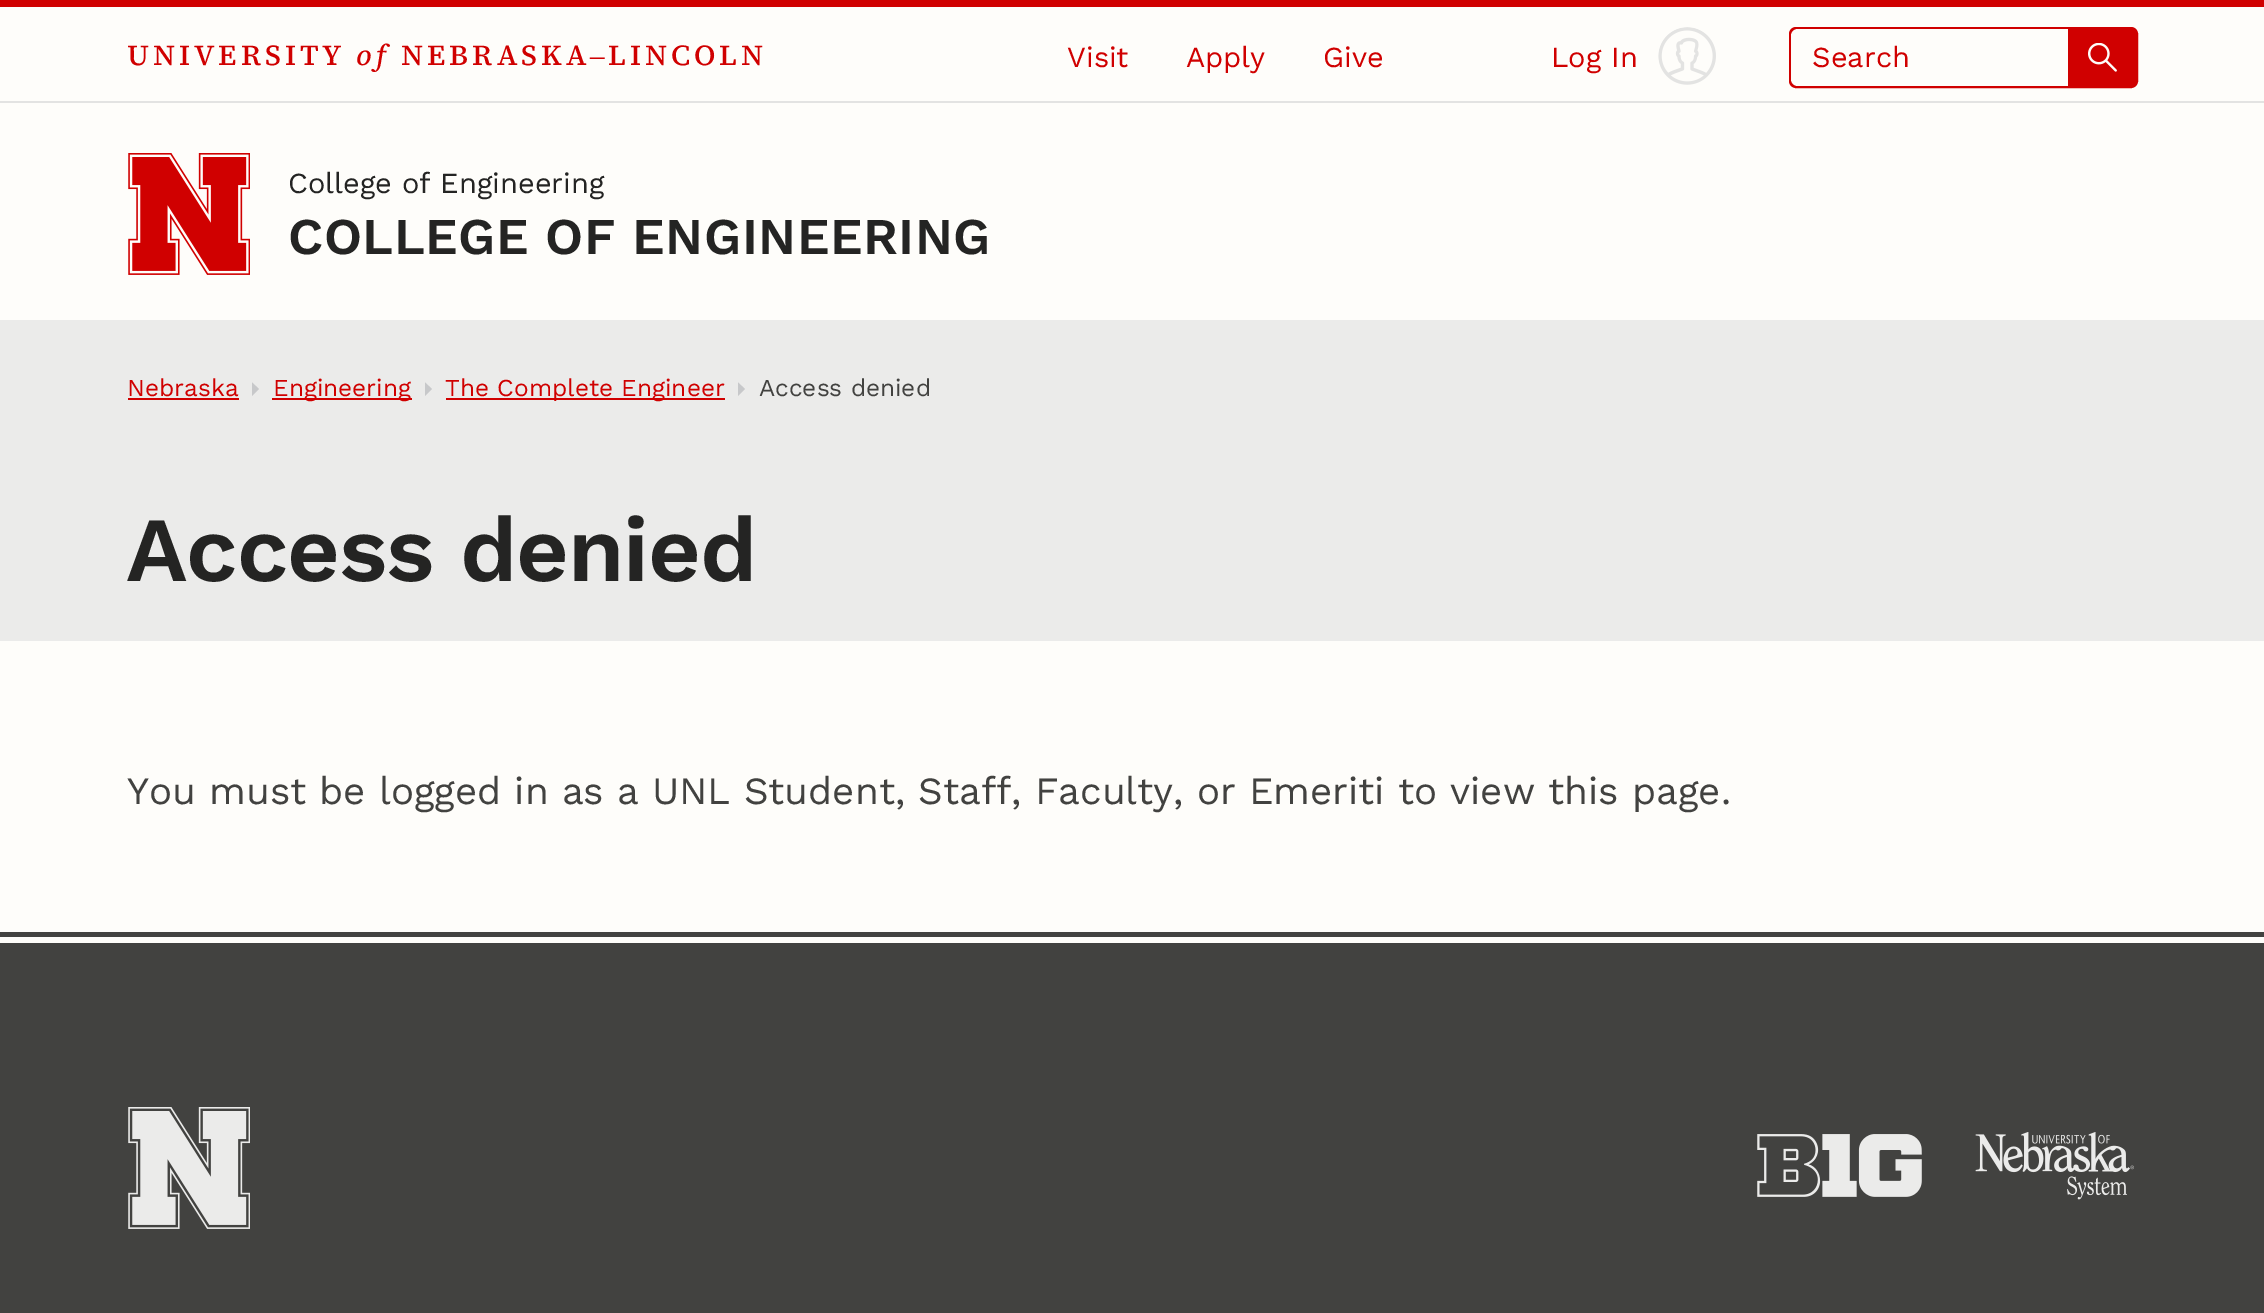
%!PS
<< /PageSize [2264 1313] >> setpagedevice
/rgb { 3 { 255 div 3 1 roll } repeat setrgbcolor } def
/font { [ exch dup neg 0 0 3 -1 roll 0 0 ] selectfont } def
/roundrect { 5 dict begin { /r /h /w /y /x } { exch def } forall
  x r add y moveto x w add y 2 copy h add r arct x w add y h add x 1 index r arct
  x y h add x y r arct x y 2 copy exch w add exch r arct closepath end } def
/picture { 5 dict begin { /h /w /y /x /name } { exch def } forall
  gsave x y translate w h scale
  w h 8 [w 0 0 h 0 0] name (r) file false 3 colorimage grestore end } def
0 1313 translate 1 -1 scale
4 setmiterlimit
254 253 250 rgb
0 0 2264 1313 rectfill
208 0 0 rgb
0 0 2264 7 rectfill
227 227 226 rgb
0 101 2264 2 rectfill
(img/1.rgb) 1658 27 58 58 picture
208 0 0 rgb
1790 28 347 59 6 roundrect gsave fill grestore
2 setlinewidth
stroke
254 253 250 rgb
1798 29 moveto 2068 29 lineto 2068 86 lineto 1798 86 lineto 1794 86 1791 83 1791 79 curveto 1791 36 lineto 1791 32 1794 29 1798 29 curveto closepath fill
(img/2.rgb) 2088 43 29 29 picture
(img/3.rgb) 128 153 122 122 picture
235 235 234 rgb
0 320 2264 321 rectfill
208 0 0 rgb
128 398 111 2 rectfill
199 200 202 rgb
252 396 moveto 252 382.5 lineto 259 389 lineto closepath fill
208 0 0 rgb
272 398 140 2 rectfill
199 200 202 rgb
425 396 moveto 425 382.5 lineto 432 389 lineto closepath fill
208 0 0 rgb
446 398 279 2 rectfill
199 200 202 rgb
738 396 moveto 738 382.5 lineto 745 389 lineto closepath fill
66 66 64 rgb
0 943 2264 370 rectfill
0 932 2264 5 rectfill
(img/4.rgb) 128 1107 122 122 picture
(img/5.rgb) 1757 1134 165 63 picture
(img/6.rgb) 1975 1132 159 68 picture
/SourceSerif4-Medium 29 font
208 0 0 rgb
127 65 moveto 3.9 0 (UNIVERSITY) ashow
/SourceSerif4-MediumItalic 29 font
356 65 moveto 3.9 0 (of) ashow
/SourceSerif4-Medium 29 font
401 65 moveto 3.9 0 (NEBRASKA) ashow
/LiberationSerif-Regular 29 font
590 65 moveto 3.9 0 (–) ashow
/SourceSerif4-Medium 29 font
608 65 moveto 3.9 0 (LINCOLN) ashow
/WorkSans-Regular 29 font
[
  [(Visit) 1067 67]
  [(Apply) 1186 67]
  [(Give) 1323 67]
  [(Log In) 1551 67]
  [(Search) 1812 67]
] { aload pop moveto show } forall
36 36 35 rgb
288 193 moveto (College of Engineering) show
/WorkSans-SemiBold 51.5 font
288 254 moveto 0.5 0 (COLLEGE OF ENGINEERING) ashow
/WorkSans-Regular 24.4 font
208 0 0 rgb
[
  [(Nebraska) 127 396]
  [(Engineering) 273 396]
  [(The Complete Engineer) 445 396]
] { aload pop moveto show } forall
66 66 64 rgb
759 396 moveto (Access denied) show
/WorkSans-SemiBold 91.5 font
36 36 35 rgb
126 581 moveto -1.25 0 (Access denied) ashow
/WorkSans-Regular 38.6 font
66 66 64 rgb
127 804 moveto -0.1 0 32 (You must be logged in as a UNL Student, Staff, Faculty, or Emeriti to view this page.) widthshow
showpage
